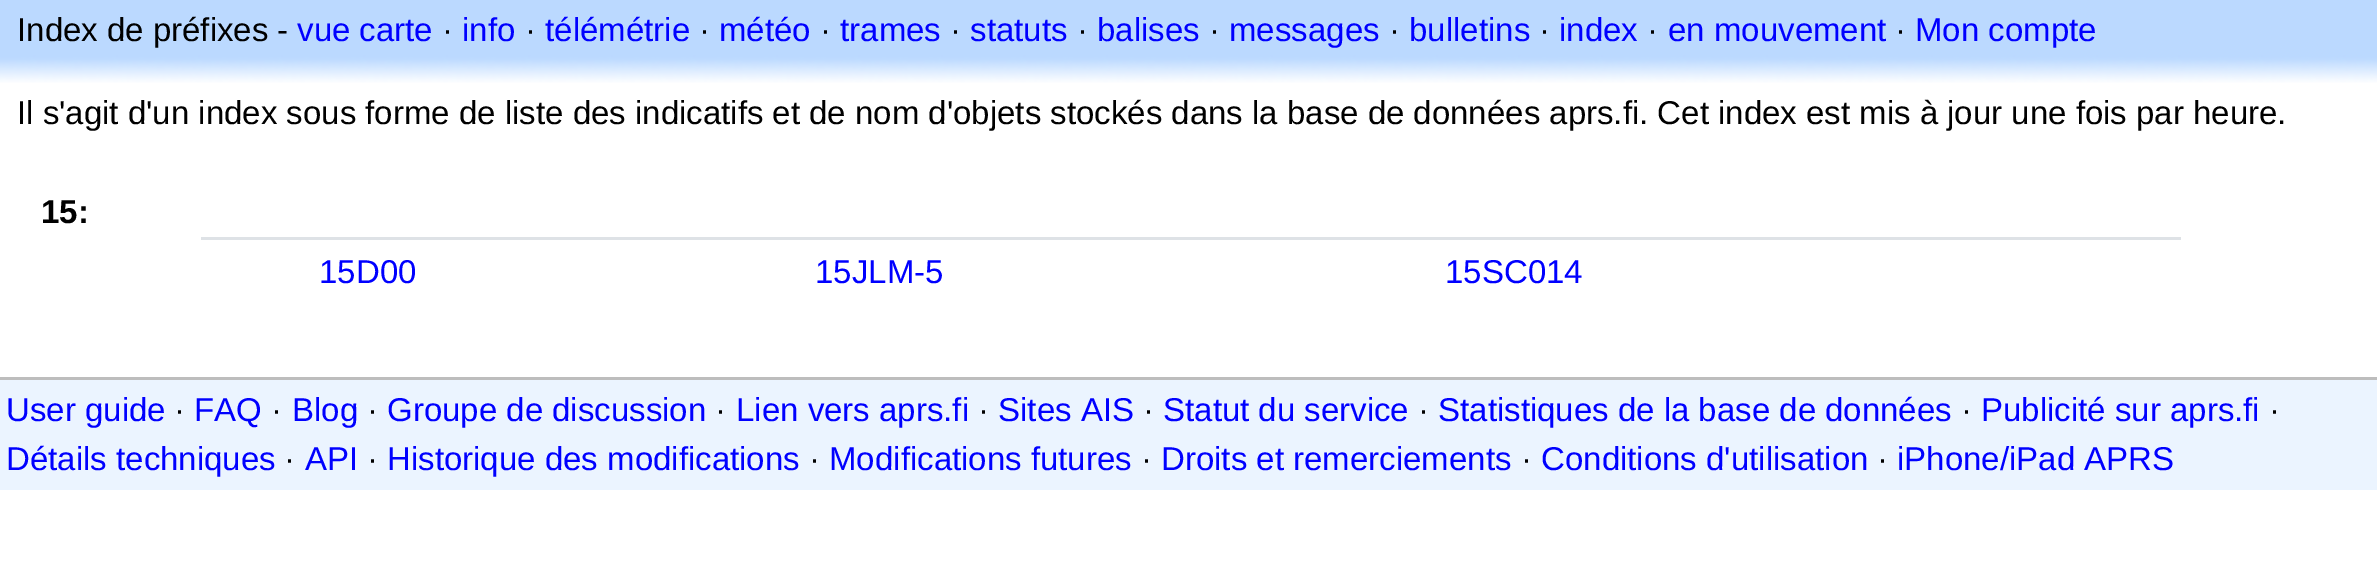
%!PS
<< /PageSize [2377 582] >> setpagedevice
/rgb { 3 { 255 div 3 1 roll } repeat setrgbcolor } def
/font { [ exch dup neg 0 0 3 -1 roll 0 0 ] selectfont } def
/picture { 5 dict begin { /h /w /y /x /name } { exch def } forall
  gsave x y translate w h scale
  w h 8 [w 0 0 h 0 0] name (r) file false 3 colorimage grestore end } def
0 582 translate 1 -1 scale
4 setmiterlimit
255 255 255 rgb
0 0 2377 582 rectfill
187 217 255 rgb
0 0 2377 55 rectfill
(img/1.rgb) 0 55 2377 28 picture
[
  [201 237 1980 3 222 226 230]
  [0 380 2377 110 235 244 255]
  [0 377 2377 3 189 189 189]
] { aload pop rgb rectfill } forall
/LiberationSans-Regular 33 font
0 0 0 rgb
17 41 moveto (Index de préfixes -) show
0 0 255 rgb
297 41 moveto (vue carte) show
0 0 0 rgb
442 41 moveto (·) show
0 0 255 rgb
462 41 moveto (info) show
0 0 0 rgb
525 41 moveto (·) show
0 0 255 rgb
545 41 moveto (télémétrie) show
0 0 0 rgb
699 41 moveto (·) show
0 0 255 rgb
719 41 moveto (météo) show
0 0 0 rgb
820 41 moveto (·) show
0 0 255 rgb
840 41 moveto (trames) show
0 0 0 rgb
950 41 moveto (·) show
0 0 255 rgb
970 41 moveto (statuts) show
0 0 0 rgb
1077 41 moveto (·) show
0 0 255 rgb
1097 41 moveto (balises) show
0 0 0 rgb
1209 41 moveto (·) show
0 0 255 rgb
1229 41 moveto (messages) show
0 0 0 rgb
1389 41 moveto (·) show
0 0 255 rgb
1409 41 moveto (bulletins) show
0 0 0 rgb
1539 41 moveto (·) show
0 0 255 rgb
1559 41 moveto (index) show
0 0 0 rgb
1647 41 moveto (·) show
0 0 255 rgb
1668 41 moveto (en mouvement) show
0 0 0 rgb
1895 41 moveto (·) show
0 0 255 rgb
1915 41 moveto (Mon compte) show
0 0 0 rgb
17 124 moveto (Il s'agit d'un index sous forme de liste des indicatifs et de nom d'objets stockés dans la base de données aprs.fi. Cet index est mis à jour une fois par heure.) show
/LiberationSans-Bold 33 font
41 223 moveto (15:) show
/LiberationSans-Regular 33 font
0 0 255 rgb
[
  [(15D00) 319 283]
  [(15JLM-5) 815 283]
  [(15SC014) 1445 283]
  [(User guide) 6 421]
] { aload pop moveto show } forall
0 0 0 rgb
174 421 moveto (·) show
0 0 255 rgb
194 421 moveto (FAQ) show
0 0 0 rgb
271 421 moveto (·) show
0 0 255 rgb
292 421 moveto (Blog) show
0 0 0 rgb
367 421 moveto (·) show
0 0 255 rgb
387 421 moveto (Groupe de discussion) show
0 0 0 rgb
715 421 moveto (·) show
0 0 255 rgb
736 421 moveto (Lien vers aprs.fi) show
0 0 0 rgb
978 421 moveto (·) show
0 0 255 rgb
998 421 moveto (Sites AIS) show
0 0 0 rgb
1143 421 moveto (·) show
0 0 255 rgb
1163 421 moveto (Statut du service) show
0 0 0 rgb
1418 421 moveto (·) show
0 0 255 rgb
1438 421 moveto (Statistiques de la base de données) show
0 0 0 rgb
1961 421 moveto (·) show
0 0 255 rgb
1981 421 moveto (Publicité sur aprs.fi) show
0 0 0 rgb
2269 421 moveto (·) show
0 0 255 rgb
6 470 moveto (Détails techniques) show
0 0 0 rgb
284 470 moveto (·) show
0 0 255 rgb
305 470 moveto (API) show
0 0 0 rgb
367 470 moveto (·) show
0 0 255 rgb
387 470 moveto (Historique des modifications) show
0 0 0 rgb
809 470 moveto (·) show
0 0 255 rgb
829 470 moveto (Modifications futures) show
0 0 0 rgb
1141 470 moveto (·) show
0 0 255 rgb
1161 470 moveto (Droits et remerciements) show
0 0 0 rgb
1521 470 moveto (·) show
0 0 255 rgb
1541 470 moveto (Conditions d'utilisation) show
0 0 0 rgb
1877 470 moveto (·) show
0 0 255 rgb
1897 470 moveto (iPhone/iPad APRS) show
showpage
